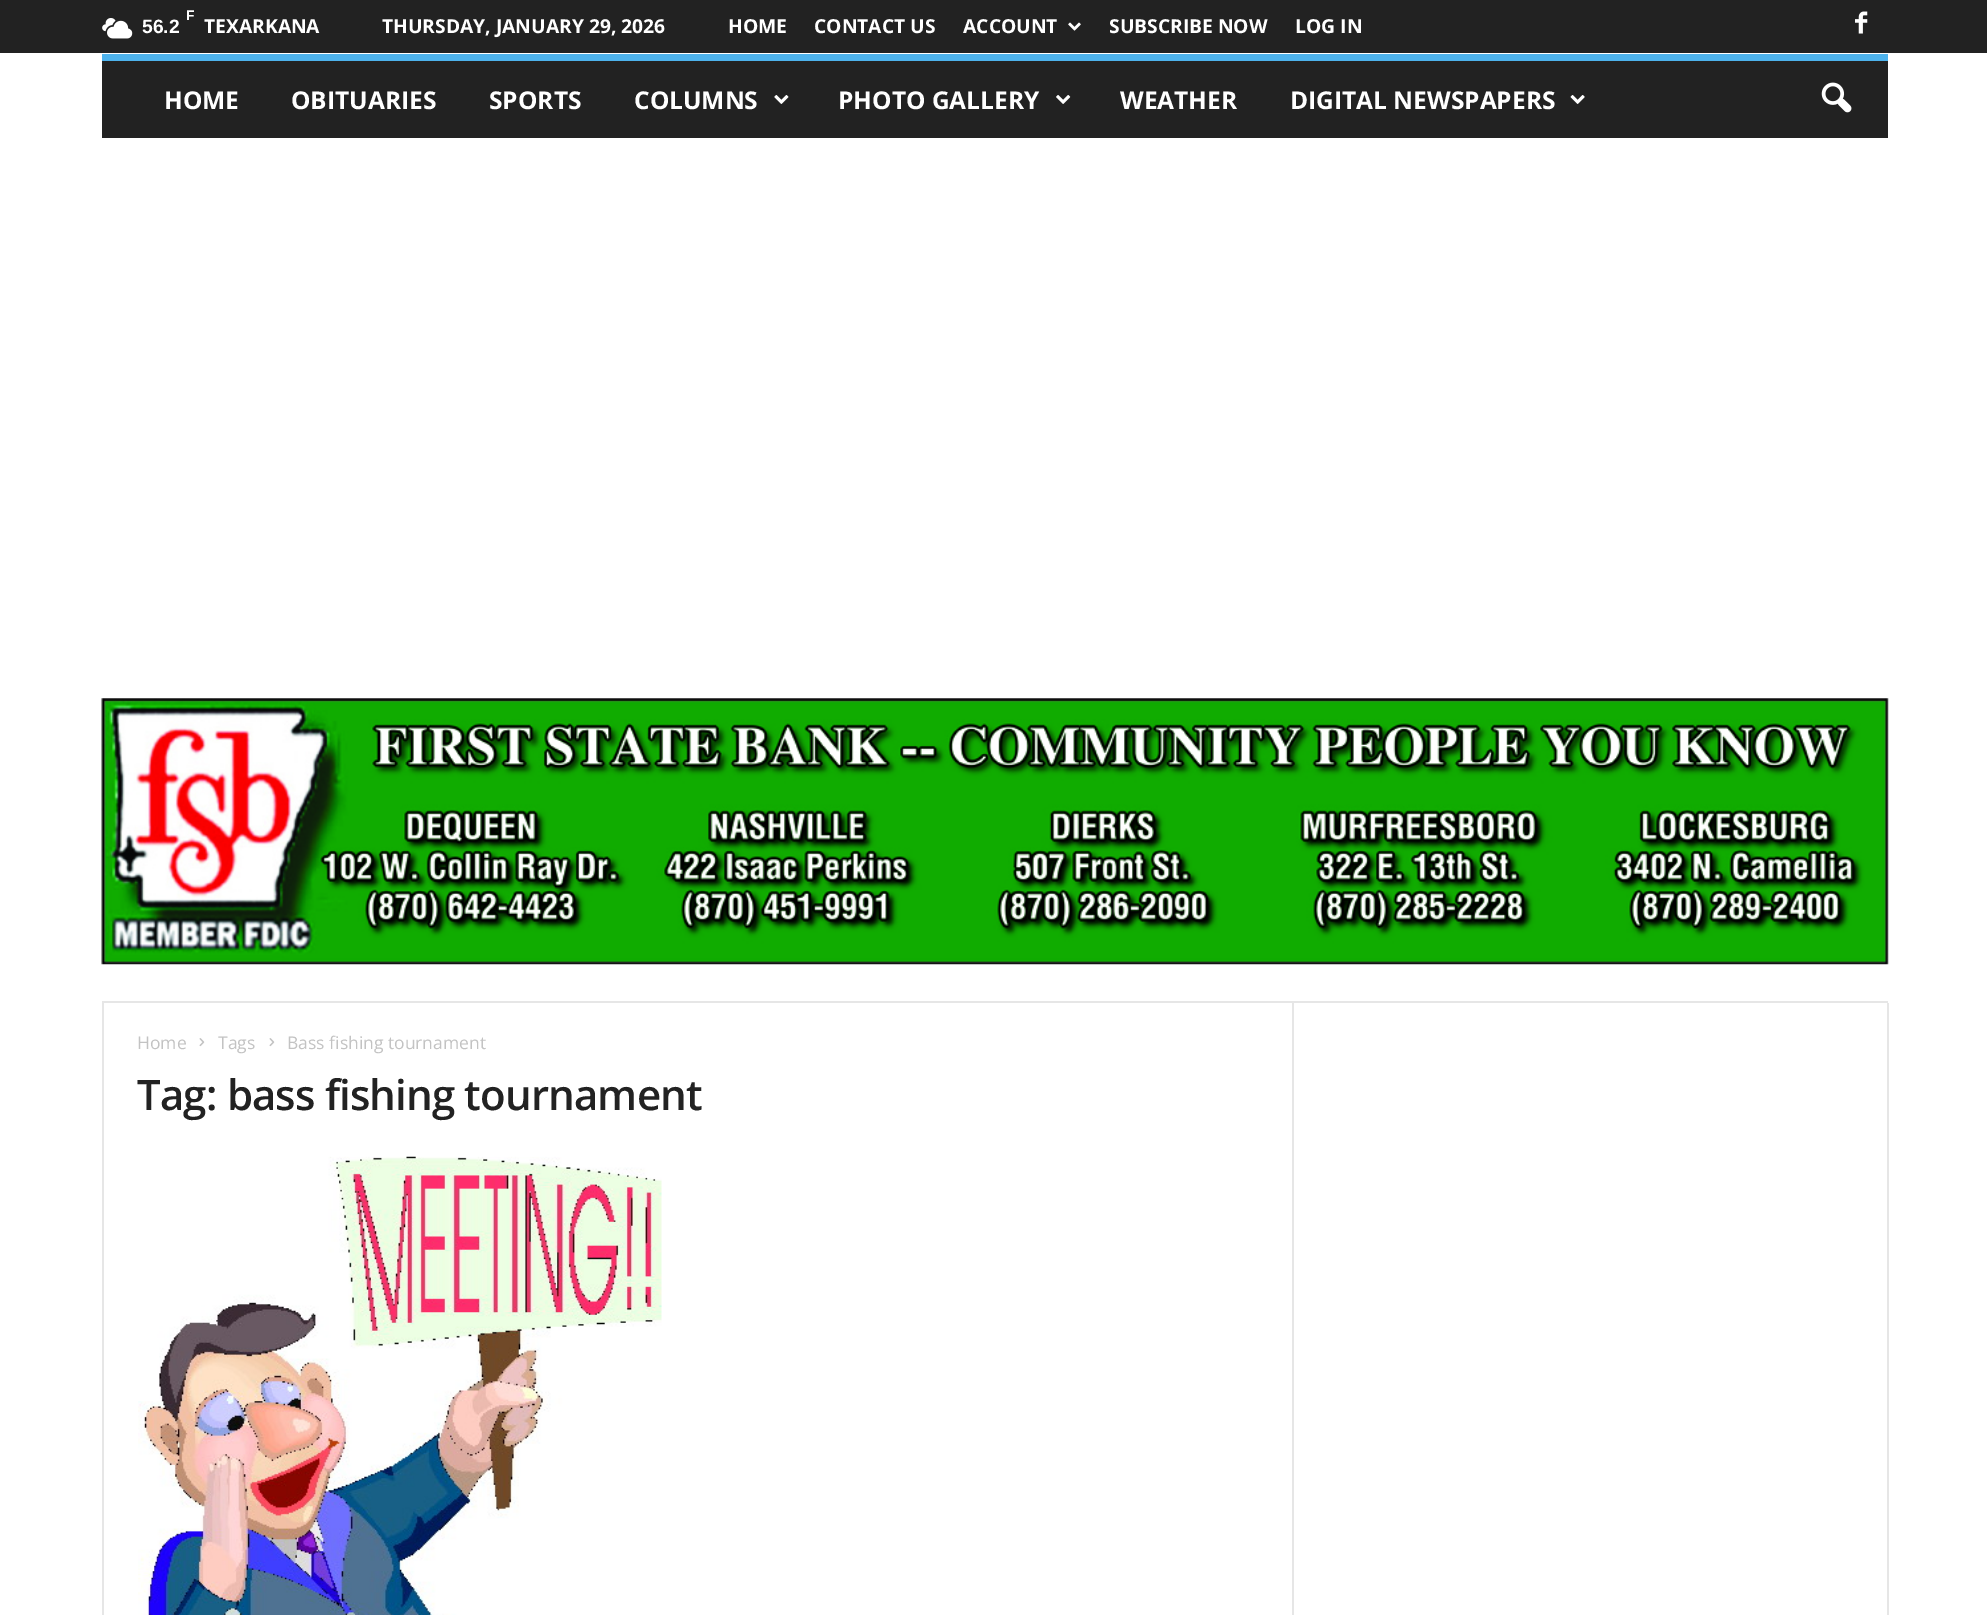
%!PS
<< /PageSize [1987 1615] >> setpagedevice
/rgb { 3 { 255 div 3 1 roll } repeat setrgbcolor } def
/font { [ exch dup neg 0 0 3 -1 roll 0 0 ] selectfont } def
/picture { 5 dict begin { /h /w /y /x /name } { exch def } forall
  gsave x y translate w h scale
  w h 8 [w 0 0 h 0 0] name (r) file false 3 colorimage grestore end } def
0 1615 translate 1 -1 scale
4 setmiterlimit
255 255 255 rgb
0 0 1987 1615 rectfill
34 34 34 rgb
0 0 1987 53 rectfill
(img/1.rgb) 102 18 31 21 picture
(img/2.rgb) 1068 22 13 9 picture
(img/3.rgb) 1855 11 13 23 picture
102 61 1786 77 rectfill
77 178 236 rgb
102 54 1786 7 rectfill
(img/4.rgb) 774 95 15 9 picture
(img/5.rgb) 1056 95 15 9 picture
(img/6.rgb) 1570 95 15 9 picture
(img/7.rgb) 1821 82 31 31 picture
230 230 230 rgb
102 1001 1786 2 rectfill
(img/8.rgb) 101 698 1788 267 picture
102 1003 2 612 rectfill
(img/9.rgb) 199 1038 6 9 picture
(img/9.rgb) 269 1038 6 9 picture
(img/10.rgb) 138 1156 524 459 picture
1292 1003 2 612 rectfill
1887 1003 2 612 rectfill
/LiberationSans-Bold 14 font
255 255 255 rgb
186 20 moveto (F) show
/LiberationSans-Bold 19.25 font
142 33 moveto (56.2) show
/OpenSans-Bold 19.25 font
[
  [(TEXARKANA) 204 33]
  [(THURSDAY, JANUARY 29, 2026) 382 33]
  [(HOME) 728 33]
  [(CONTACT US) 814 33]
  [(ACCOUNT) 963 33]
  [(SUBSCRIBE NOW) 1109 33]
  [(LOG IN) 1295 33]
] { aload pop moveto show } forall
/OpenSans-Bold 24.5 font
[
  [(HOME) 164 109]
  [(OBITUARIES) 291 109]
  [(SPORTS) 489 109]
  [(COLUMNS) 634 109]
  [(PHOTO GALLERY) 838 109]
  [(WEATHER) 1120 109]
  [(DIGITAL NEWSPAPERS) 1290 109]
] { aload pop moveto show } forall
/OpenSans-Regular 17.5 font
195 195 195 rgb
[
  [(Home) 137 1049]
  [(Tags) 218 1049]
  [(Bass fishing tournament) 287 1049]
] { aload pop moveto show } forall
/OpenSans-SemiBold 42 font
34 34 34 rgb
137 1110 moveto -0.85 0 (Tag: bass fishing tournament) ashow
showpage
